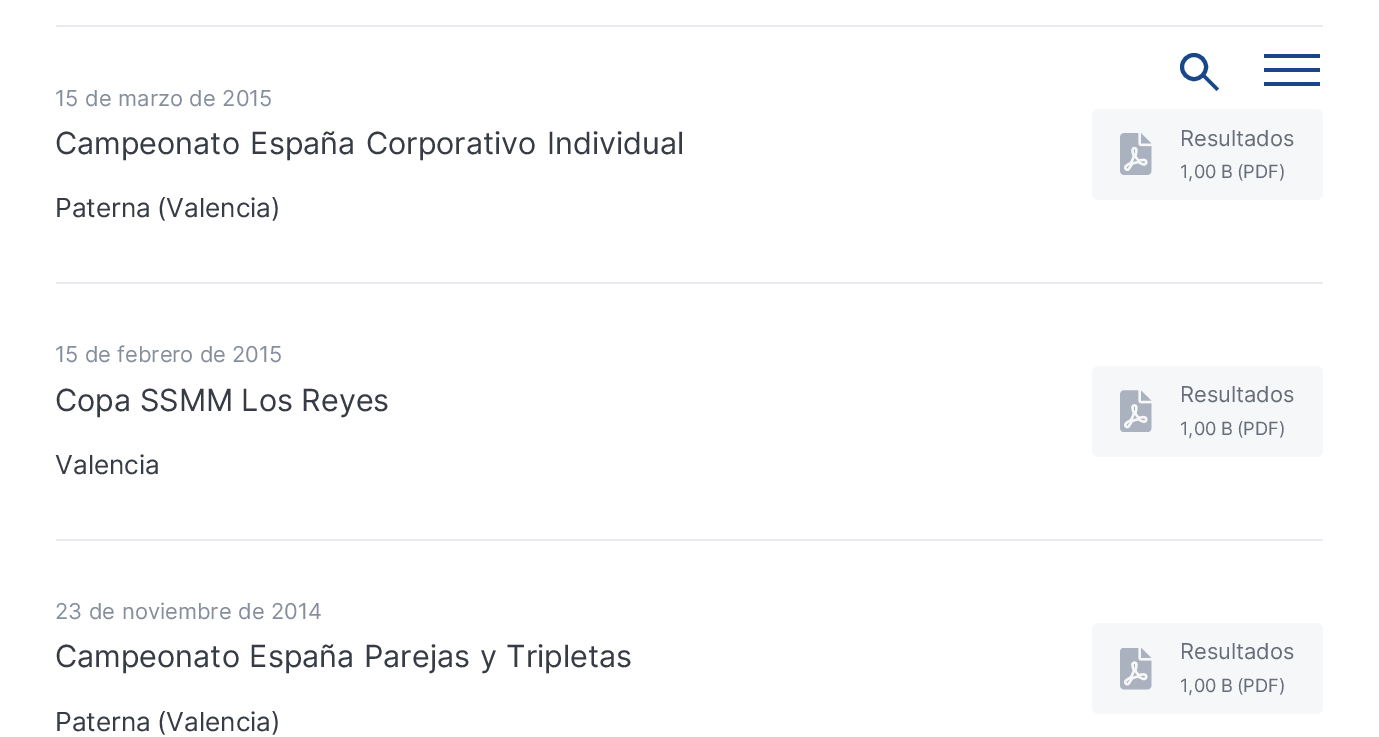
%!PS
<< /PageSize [1379 737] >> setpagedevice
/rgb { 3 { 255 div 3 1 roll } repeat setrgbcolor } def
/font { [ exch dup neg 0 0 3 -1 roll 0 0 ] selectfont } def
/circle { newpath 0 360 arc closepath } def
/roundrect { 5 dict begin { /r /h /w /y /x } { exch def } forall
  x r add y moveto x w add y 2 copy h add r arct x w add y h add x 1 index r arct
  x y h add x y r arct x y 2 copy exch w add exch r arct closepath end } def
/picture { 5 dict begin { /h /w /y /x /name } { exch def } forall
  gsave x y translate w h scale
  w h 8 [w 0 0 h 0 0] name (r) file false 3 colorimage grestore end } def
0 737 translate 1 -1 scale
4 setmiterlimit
255 255 255 rgb
0 0 1379 737 rectfill
24 70 137 rgb
4 setlinewidth
1194 67 12 circle stroke
1204 73.5 moveto 1219 88.5 lineto 1216.5 91 lineto 1201.5 76 lineto closepath fill
[
  [1264 68 56 4 24 70 137]
  [1264 54 56 4 24 70 137]
  [1264 82 56 4 24 70 137]
  [56 25 1267 2 233 235 241]
] { aload pop rgb rectfill } forall
246 247 249 rgb
1092 109 231 91 7 roundrect fill
(img/1.rgb) 1120 133 32 42 picture
233 235 241 rgb
56 282 1267 2 rectfill
246 247 249 rgb
1092 366 231 91 7 roundrect fill
(img/2.rgb) 1120 390 32 42 picture
233 235 241 rgb
56 539 1267 2 rectfill
246 247 249 rgb
1092 623 231 91 7 roundrect fill
(img/3.rgb) 1120 648 32 42 picture
/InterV-Regular 21.9 font
134 142 156 rgb
55 106 moveto 0.5 0 32 (15 de marzo de 2015) widthshow
/InterV-Regular 30.5 font
54 59 69 rgb
55 154 moveto 2 0 32 (Campeonato España Corporativo Individual) widthshow
/InterV-Regular 26.25 font
55 217 moveto -2 0 32 (Paterna \(Valencia\)) widthshow
/InterV-Regular 21.9 font
103 109 121 rgb
1180 146 moveto (Resultados) show
/InterV-Regular 18.25 font
1180 178 moveto -1 0 32 (1,00 B \(PDF\)) widthshow
/InterV-Regular 21.9 font
134 142 156 rgb
55 362 moveto (15 de febrero de 2015) show
/InterV-Regular 30.5 font
54 59 69 rgb
55 411 moveto (Copa SSMM Los Reyes) show
/InterV-Regular 26.25 font
55 474 moveto (Valencia) show
/InterV-Regular 21.9 font
103 109 121 rgb
1180 402 moveto (Resultados) show
/InterV-Regular 18.25 font
1180 435 moveto -1 0 32 (1,00 B \(PDF\)) widthshow
/InterV-Regular 21.9 font
134 142 156 rgb
55 619 moveto 0.5 0 32 (23 de noviembre de 2014) widthshow
/InterV-Regular 30.5 font
54 59 69 rgb
55 667 moveto 1 0 32 (Campeonato España Parejas y Tripletas) widthshow
/InterV-Regular 26.25 font
55 731 moveto -2 0 32 (Paterna \(Valencia\)) widthshow
/InterV-Regular 21.9 font
103 109 121 rgb
1180 659 moveto (Resultados) show
/InterV-Regular 18.25 font
1180 692 moveto -1 0 32 (1,00 B \(PDF\)) widthshow
showpage
